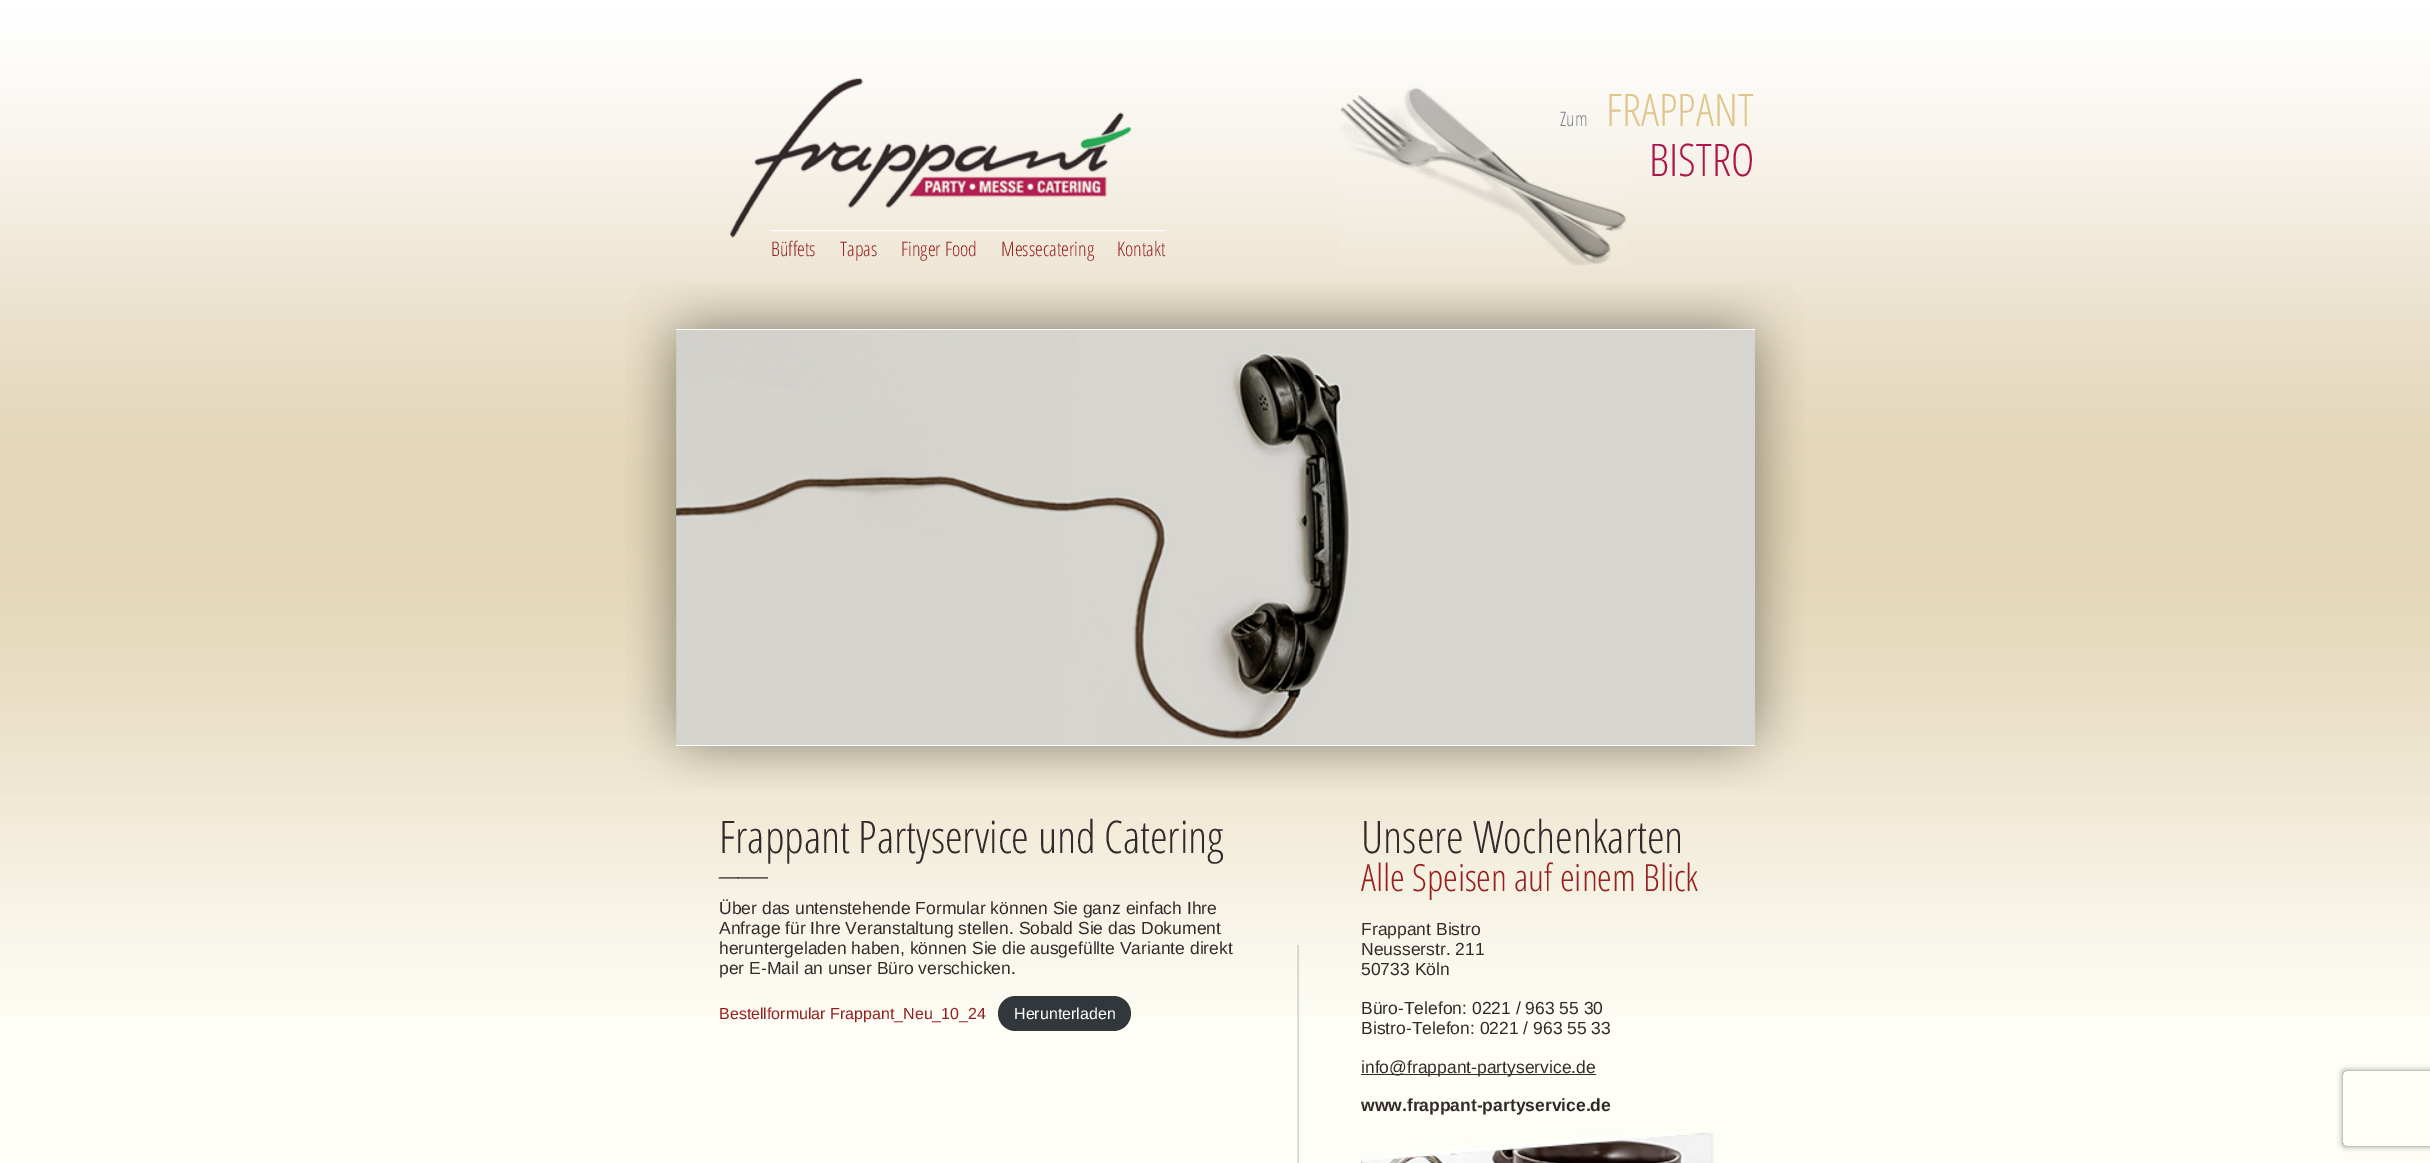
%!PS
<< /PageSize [2430 1163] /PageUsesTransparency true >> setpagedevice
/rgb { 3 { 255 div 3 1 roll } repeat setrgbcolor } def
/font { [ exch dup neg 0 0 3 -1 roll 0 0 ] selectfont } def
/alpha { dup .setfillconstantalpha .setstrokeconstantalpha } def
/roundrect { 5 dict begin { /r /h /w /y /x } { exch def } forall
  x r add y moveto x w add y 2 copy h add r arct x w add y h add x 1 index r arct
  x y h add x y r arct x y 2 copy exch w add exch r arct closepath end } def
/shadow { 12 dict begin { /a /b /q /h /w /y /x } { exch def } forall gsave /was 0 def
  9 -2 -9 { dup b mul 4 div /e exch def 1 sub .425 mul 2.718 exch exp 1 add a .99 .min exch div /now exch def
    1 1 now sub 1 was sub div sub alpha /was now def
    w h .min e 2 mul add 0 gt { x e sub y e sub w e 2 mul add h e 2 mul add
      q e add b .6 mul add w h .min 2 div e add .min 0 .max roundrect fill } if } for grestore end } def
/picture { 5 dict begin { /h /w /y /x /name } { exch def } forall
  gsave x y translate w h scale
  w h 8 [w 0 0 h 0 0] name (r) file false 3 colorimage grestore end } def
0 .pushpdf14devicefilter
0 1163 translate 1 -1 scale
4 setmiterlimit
254 254 246 rgb
0 0 2430 1163 rectfill
(img/1.rgb) 0 0 2430 1015 picture
(img/2.rgb) 730 78 402 160 picture
(img/3.rgb) 1340 87 287 179 picture
(img/4.rgb) 771 230 46 2 picture
(img/5.rgb) 816 230 62 2 picture
(img/6.rgb) 877 230 101 2 picture
(img/7.rgb) 977 230 117 2 picture
(img/8.rgb) 1094 230 71 2 picture
(img/9.rgb) 626 282 1179 508 picture
255 255 255 rgb
676 329 1079 1 rectfill
676 745 1079 1 rectfill
(img/10.rgb) 676 330 1079 415 picture
50 55 60 rgb
998 996 133 35 17.5 roundrect fill
(img/11.rgb) 1297 945 2 218 picture
51 40 42 rgb
1361 1074 235 1 rectfill
(img/12.rgb) 1361 1133 350 30 picture
(img/13.rgb) 1361 1133 353 30 picture
gsave
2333 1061 moveto 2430 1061 lineto 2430 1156 lineto 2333 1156 lineto closepath 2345.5 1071 moveto 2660.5 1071 lineto 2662 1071 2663 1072 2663 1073.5 curveto 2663 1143.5 lineto 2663 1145 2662 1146 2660.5 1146 curveto 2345.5 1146 lineto 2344 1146 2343 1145 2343 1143.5 curveto 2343 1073.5 lineto 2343 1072 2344 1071 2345.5 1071 curveto closepath eoclip newpath
128 128 128 rgb
2343 1071 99 75 2.5 3 1 shadow
grestore
/OpenSansCondensed-Light 20 font
120 127 136 rgb
1560 126 moveto (Zum) show
/OpenSansCondensed-Light 45 font
222 197 139 rgb
1606 126 moveto (FRAPPANT) show
174 22 75 rgb
1649 176 moveto (BISTRO) show
/OpenSansCondensed-Light 20 font
150 32 32 rgb
[
  [(Büffets) 771 256]
  [(Tapas) 840 256]
  [(Finger Food) 901 256]
  [(Messecatering) 1001 256]
  [(Kontakt) 1117 256]
] { aload pop moveto show } forall
/OpenSansCondensed-Light 45 font
51 40 42 rgb
719 853 moveto (Frappant Partyservice und Catering) show
/LiberationSans-Regular 17.5 font
[
  [(_____) 719 875]
  [(Über das untenstehende Formular können Sie ganz einfach Ihre) 719 914]
  [(Anfrage für Ihre Veranstaltung stellen. Sobald Sie das Dokument) 719 934]
  [(heruntergeladen haben, können Sie die ausgefüllte Variante direkt) 719 954]
  [(per E-Mail an unser Büro verschicken.) 719 974]
] { aload pop moveto show } forall
/LiberationSans-Regular 16 font
150 32 32 rgb
719 1019 moveto (Bestellformular Frappant_Neu_10_24) show
255 255 255 rgb
1014 1019 moveto (Herunterladen) show
/OpenSansCondensed-Light 45 font
51 40 42 rgb
1361 853 moveto (Unsere Wochenkarten) show
/OpenSansCondensed-Light 37.5 font
150 32 32 rgb
1361 891 moveto (Alle Speisen auf einem Blick) show
/LiberationSans-Regular 17.5 font
51 40 42 rgb
[
  [(Frappant Bistro) 1361 935]
  [(Neusserstr. 211) 1361 955]
  [(50733 Köln) 1361 975]
  [(Büro-Telefon: 0221 / 963 55 30) 1361 1014]
  [(Bistro-Telefon: 0221 / 963 55 33) 1361 1034]
  [(info@frappant-partyservice.de) 1361 1073]
] { aload pop moveto show } forall
/LiberationSans-Bold 17.5 font
1361 1111 moveto (www.frappant-partyservice.de) show
.poppdf14devicefilter showpage
